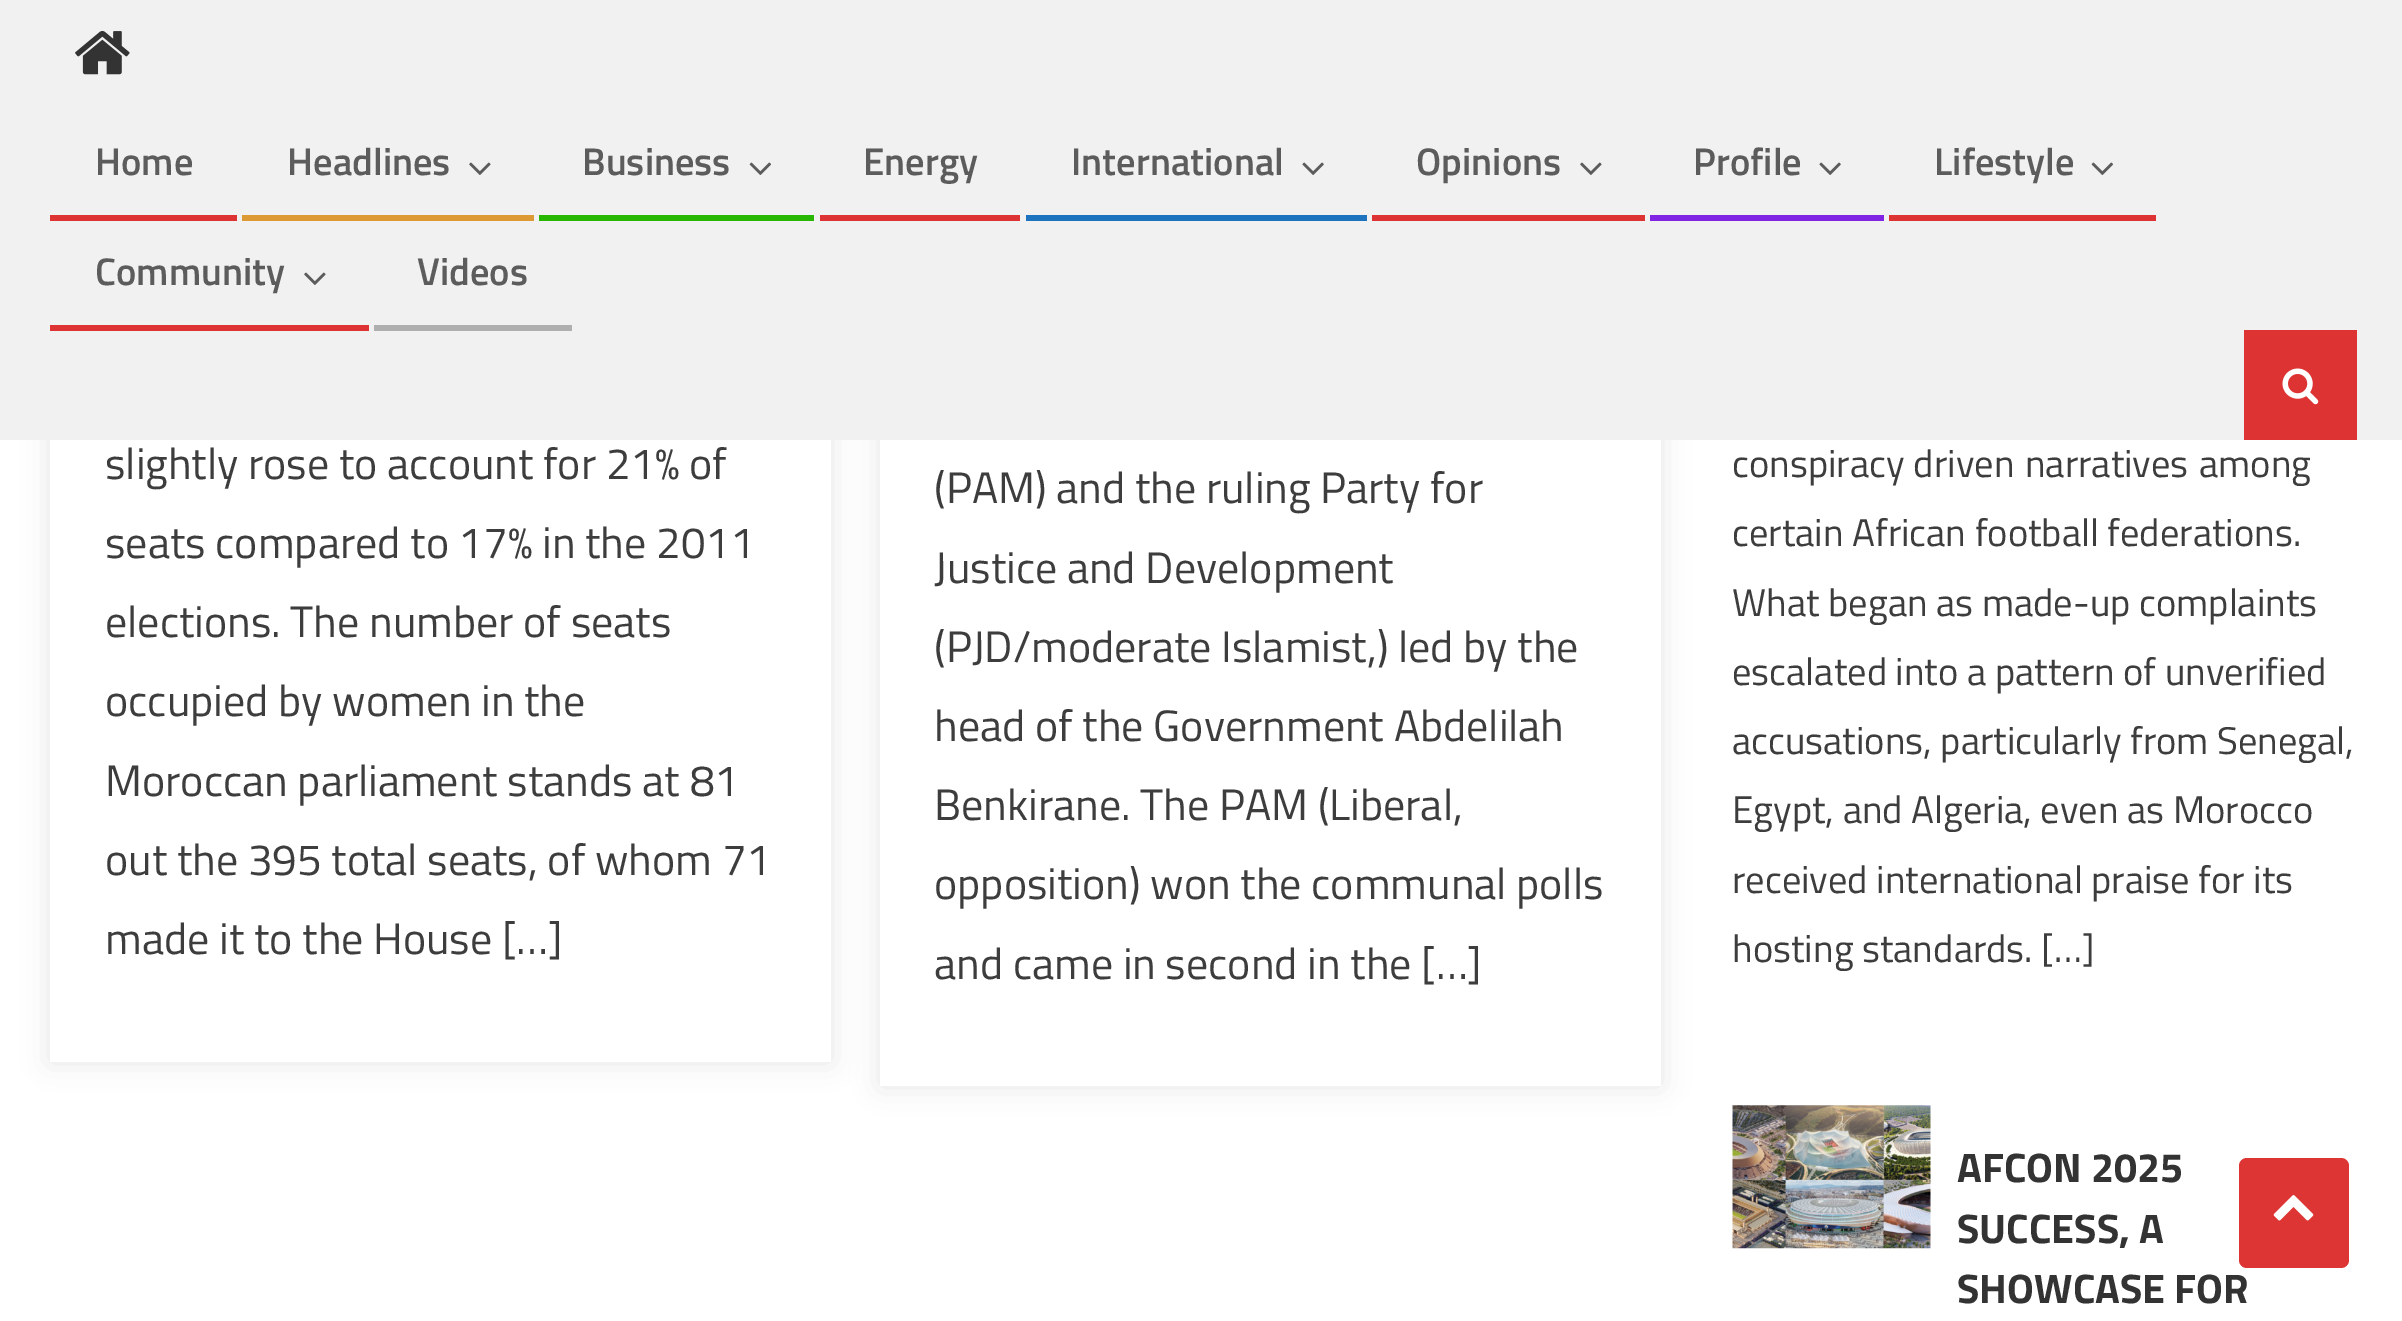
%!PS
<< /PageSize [2402 1321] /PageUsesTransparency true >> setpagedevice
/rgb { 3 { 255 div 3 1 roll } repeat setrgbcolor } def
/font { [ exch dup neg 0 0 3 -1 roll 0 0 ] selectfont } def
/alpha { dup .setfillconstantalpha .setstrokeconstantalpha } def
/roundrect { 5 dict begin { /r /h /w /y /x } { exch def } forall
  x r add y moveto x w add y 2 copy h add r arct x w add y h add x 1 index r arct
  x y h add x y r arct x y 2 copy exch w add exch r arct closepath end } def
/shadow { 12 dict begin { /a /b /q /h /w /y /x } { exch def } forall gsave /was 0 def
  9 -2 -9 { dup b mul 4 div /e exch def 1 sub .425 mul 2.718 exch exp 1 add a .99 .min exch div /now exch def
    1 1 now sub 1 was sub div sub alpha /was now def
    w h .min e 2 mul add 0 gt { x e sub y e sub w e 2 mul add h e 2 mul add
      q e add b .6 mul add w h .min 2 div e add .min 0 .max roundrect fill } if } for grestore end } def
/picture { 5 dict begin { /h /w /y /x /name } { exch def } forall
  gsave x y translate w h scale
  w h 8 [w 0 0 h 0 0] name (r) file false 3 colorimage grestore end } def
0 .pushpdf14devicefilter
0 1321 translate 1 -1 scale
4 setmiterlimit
255 255 255 rgb
0 0 2402 1321 rectfill
gsave
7 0 moveto 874 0 lineto 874 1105 lineto 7 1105 lineto closepath 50 -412 moveto 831 -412 lineto 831 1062 lineto 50 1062 lineto closepath eoclip newpath
0 0 0 rgb
50 -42 781 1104 0 14 0.1 shadow
grestore
gsave
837 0 moveto 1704 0 lineto 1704 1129 lineto 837 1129 lineto closepath 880 -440 moveto 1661 -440 lineto 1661 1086 lineto 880 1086 lineto closepath eoclip newpath
0 0 0 rgb
880 -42 781 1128 0 14 0.1 shadow
grestore
241 241 241 rgb
0 0 2402 440 rectfill
(img/1.rgb) 75 30 55 45 picture
221 51 51 rgb
50 215 187 6 rectfill
221 153 51 rgb
242 215 292 6 rectfill
(img/2.rgb) 469 162 22 13 picture
39 183 0 rgb
539 215 275 6 rectfill
(img/3.rgb) 749 162 22 13 picture
221 51 51 rgb
820 215 200 6 rectfill
30 115 190 rgb
1026 215 341 6 rectfill
(img/4.rgb) 1302 162 22 13 picture
221 51 51 rgb
1372 215 273 6 rectfill
(img/2.rgb) 1580 162 22 13 picture
130 36 227 rgb
1650 215 234 6 rectfill
(img/4.rgb) 1819 162 22 13 picture
221 51 51 rgb
1889 215 267 6 rectfill
(img/3.rgb) 2091 162 22 13 picture
50 325 319 6 rectfill
(img/2.rgb) 304 272 22 13 picture
175 175 175 rgb
374 325 198 6 rectfill
221 51 51 rgb
2244 330 113 110 rectfill
(img/5.rgb) 2282 368 37 37 picture
(img/6.rgb) 1732 1105 199 144 picture
221 52 52 rgb
2239 1158 110 110 8 roundrect fill
(img/7.rgb) 2273 1195 41 26 picture
/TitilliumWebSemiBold-SemiBold 38.5 font
93 92 92 rgb
[
  [(Home) 95 175]
  [(Headlines) 287 175]
  [(Business) 582 175]
  [(Energy) 863 175]
  [(International) 1071 175]
  [(Opinions) 1416 175]
  [(Profile) 1693 175]
  [(Lifestyle) 1934 175]
  [(Community) 95 285]
  [(Videos) 417 285]
] { aload pop moveto show } forall
/TitilliumWeb-Regular 44 font
61 61 61 rgb
[
  [(slightly rose to account for 21% of) 105 479]
  [(seats compared to 17% in the 2011) 105 558]
  [(elections. The number of seats) 105 637]
  [(occupied by women in the) 105 716]
  [(Moroccan parliament stands at 81) 105 796]
  [(out the 395 total seats, of whom 71) 105 875]
  [(made it to the House […]) 105 954]
  [(\(PAM\) and the ruling Party for) 934 503]
  [(Justice and Development) 934 583]
  [(\(PJD/moderate Islamist,\) led by the) 934 662]
  [(head of the Government Abdelilah) 934 741]
  [(Benkirane. The PAM \(Liberal,) 934 820]
  [(opposition\) won the communal polls) 934 899]
  [(and came in second in the […]) 934 979]
] { aload pop moveto show } forall
/TitilliumWeb-Regular 38.5 font
1732 477 moveto 2 0 32 (conspiracy‑driven narratives among) widthshow
[
  [(certain African football federations.) 1732 546]
  [(What began as made-up complaints) 1732 616]
  [(escalated into a pattern of unverified) 1732 685]
  [(accusations, particularly from Senegal,) 1732 754]
  [(Egypt, and Algeria, even as Morocco) 1732 823]
  [(received international praise for its) 1732 893]
  [(hosting standards. […]) 1732 962]
] { aload pop moveto show } forall
/TitilliumWeb-Bold 41.25 font
51 51 51 rgb
[
  [(AFCON 2025) 1957 1182]
  [(SUCCESS, A) 1957 1243]
  [(SHOWCASE FOR) 1957 1303]
] { aload pop moveto show } forall
.poppdf14devicefilter showpage
